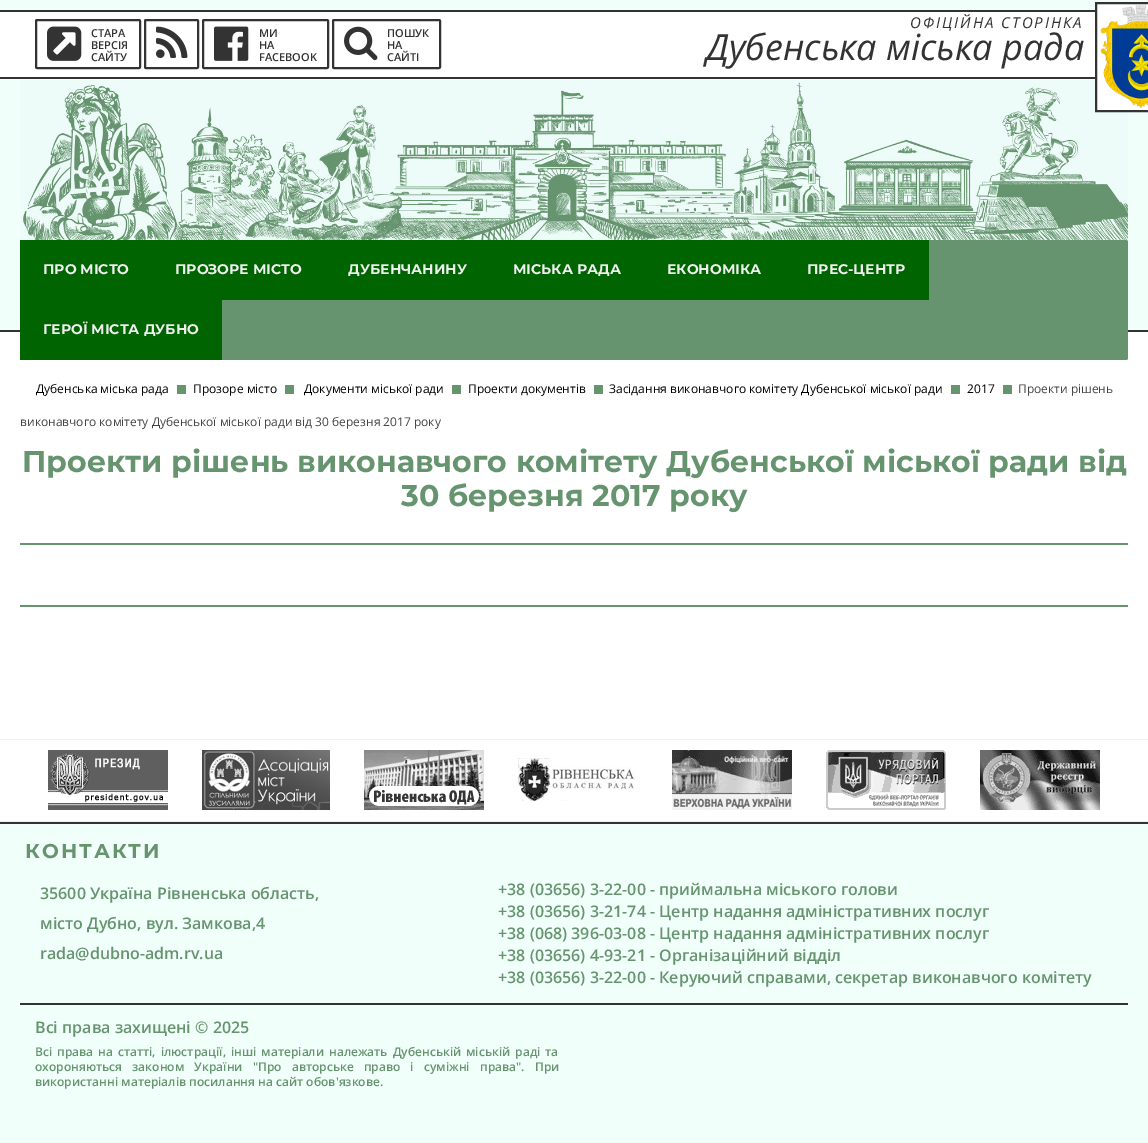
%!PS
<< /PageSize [1148 1143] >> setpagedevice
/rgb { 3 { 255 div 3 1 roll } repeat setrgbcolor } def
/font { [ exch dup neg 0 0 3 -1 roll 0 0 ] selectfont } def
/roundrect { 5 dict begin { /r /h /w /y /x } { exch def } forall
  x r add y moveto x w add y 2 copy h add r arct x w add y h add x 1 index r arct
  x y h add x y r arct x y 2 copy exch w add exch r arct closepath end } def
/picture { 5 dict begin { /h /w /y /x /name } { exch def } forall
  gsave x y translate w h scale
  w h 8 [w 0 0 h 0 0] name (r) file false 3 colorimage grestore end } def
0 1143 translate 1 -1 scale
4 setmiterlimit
240 255 250 rgb
0 0 1148 1143 rectfill
[
  [0 12 1095 65 255 255 255]
  [0 10 1095 2 51 51 51]
  [0 77 1095 2 51 51 51]
] { aload pop rgb rectfill } forall
2 setlinewidth
36 20 104 48 1 roundrect stroke
(img/1.rgb) 47 26 35 35 picture
145 20 53 48 1 roundrect stroke
(img/2.rgb) 156 26 32 32 picture
203 20 125 48 1 roundrect stroke
(img/3.rgb) 214 26 35 35 picture
333 20 107 48 1 roundrect stroke
(img/4.rgb) 344 26 34 35 picture
(img/6.rgb) 20 80 1108 160 picture
255 255 255 rgb
1096 3 moveto 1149 3 lineto 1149 111 lineto 1096 111 lineto closepath gsave fill grestore
51 51 51 rgb
stroke
(img/5.rgb) 1100 5 48 103 picture
0 330 1148 2 rectfill
255 255 255 rgb
0 332 1148 489 rectfill
102 148 111 rgb
20 240 1108 120 2 roundrect fill
[
  [20 240 909 60 0 100 0]
  [20 300 202 60 0 100 0]
  [177 385 9 9 102 148 111]
  [285 385 9 9 102 148 111]
  [452 385 9 9 102 148 111]
  [594 385 9 9 102 148 111]
  [951 385 9 9 102 148 111]
  [1003 385 9 9 102 148 111]
  [20 543 1108 2 102 148 111]
  [20 605 1108 2 102 148 111]
  [0 739 1148 1 239 239 239]
  [0 821 1148 1 239 239 239]
] { aload pop rgb rectfill } forall
(img/7.rgb) 48 750 120 60 picture
(img/8.rgb) 202 750 128 60 picture
(img/9.rgb) 364 750 120 60 picture
(img/10.rgb) 518 758 118 43 picture
(img/11.rgb) 672 750 120 60 picture
(img/12.rgb) 826 750 120 60 picture
(img/13.rgb) 980 750 120 60 picture
51 51 51 rgb
0 822 1148 2 rectfill
20 1003 1108 2 rectfill
/OpenSans-SemiBold 11 font
[
  [(СТАРА) 91 37]
  [(ВЕРСІЯ) 91 49]
  [(САЙТУ) 91 61]
  [(МИ) 259 37]
  [(НА) 259 49]
  [(FACEBOOK) 259 61]
  [(ПОШУК) 387 37]
  [(НА) 387 49]
  [(САЙТІ) 387 61]
] { aload pop moveto show } forall
/OpenSans-Italic 15 font
910 28 moveto 2 0 (ОФІЦІЙНА СТОРІНКА) ashow
/OpenSans-Italic 36 font
706 60 moveto (Дубенська міська рада) show
/Montserrat-Bold 14 font
239 239 239 rgb
[
  [(ПРО МІСТО) 43 274]
  [(ПРОЗОРЕ МІСТО) 175 274]
  [(ДУБЕНЧАНИНУ) 348 274]
  [(МІСЬКА РАДА) 513 274]
  [(ЕКОНОМІКА) 667 274]
  [(ПРЕС-ЦЕНТР) 807 274]
  [(ГЕРОЇ МІСТА ДУБНО) 43 334]
] { aload pop moveto show } forall
/OpenSans-Regular 12 font
0 0 0 rgb
[
  [(Дубенська міська рада) 36 393]
  [(Прозоре місто) 193 393]
  [(Документи міської ради) 304 393]
  [(Проекти документів) 468 393]
  [(Засідання виконавчого комітету Дубенської міської ради) 609 393]
  [(2017) 967 393]
] { aload pop moveto show } forall
68 68 68 rgb
1018 393 moveto (Проекти рішень) show
20 426 moveto (виконавчого комітету Дубенської міської ради від 30 березня 2017 року) show
/Montserrat-Bold 30 font
102 148 111 rgb
22 472 moveto (Проекти рішень виконавчого комітету Дубенської міської ради від) show
401 506 moveto (30 березня 2017 року) show
/Montserrat-Bold 20 font
25 858 moveto 2 0 (КОНТАКТИ) ashow
/OpenSans-SemiBold 16 font
[
  [(35600 Україна Рівненська область,) 40 899]
  [(місто Дубно, вул. Замкова,4) 40 929]
  [(rada@dubno-adm.rv.ua) 40 959]
  [(+38 \(03656\) 3-22-00 - приймальна міського голови) 498 895]
  [(+38 \(03656\) 3-21-74 - Центр надання адміністративних послуг) 498 917]
  [(+38 \(068\) 396-03-08 - Центр надання адміністративних послуг) 498 939]
  [(+38 \(03656\) 4-93-21 - Організаційний відділ) 498 961]
  [(+38 \(03656\) 3-22-00 - Керуючий справами, секретар виконавчого комітету) 498 983]
  [(Всі права захищені © 2025) 35 1033]
] { aload pop moveto show } forall
/OpenSans-SemiBold 12 font
35 1056 moveto 1.75 0 32 (Всі права на статті, ілюстрації, інші матеріали належать Дубенській міській раді та) widthshow
35 1071 moveto 7 0 32 (охороняються законом України "Про авторське право і суміжні права". При) widthshow
35 1086 moveto (використанні матеріалів посилання на сайт обов'язкове.) show
showpage
